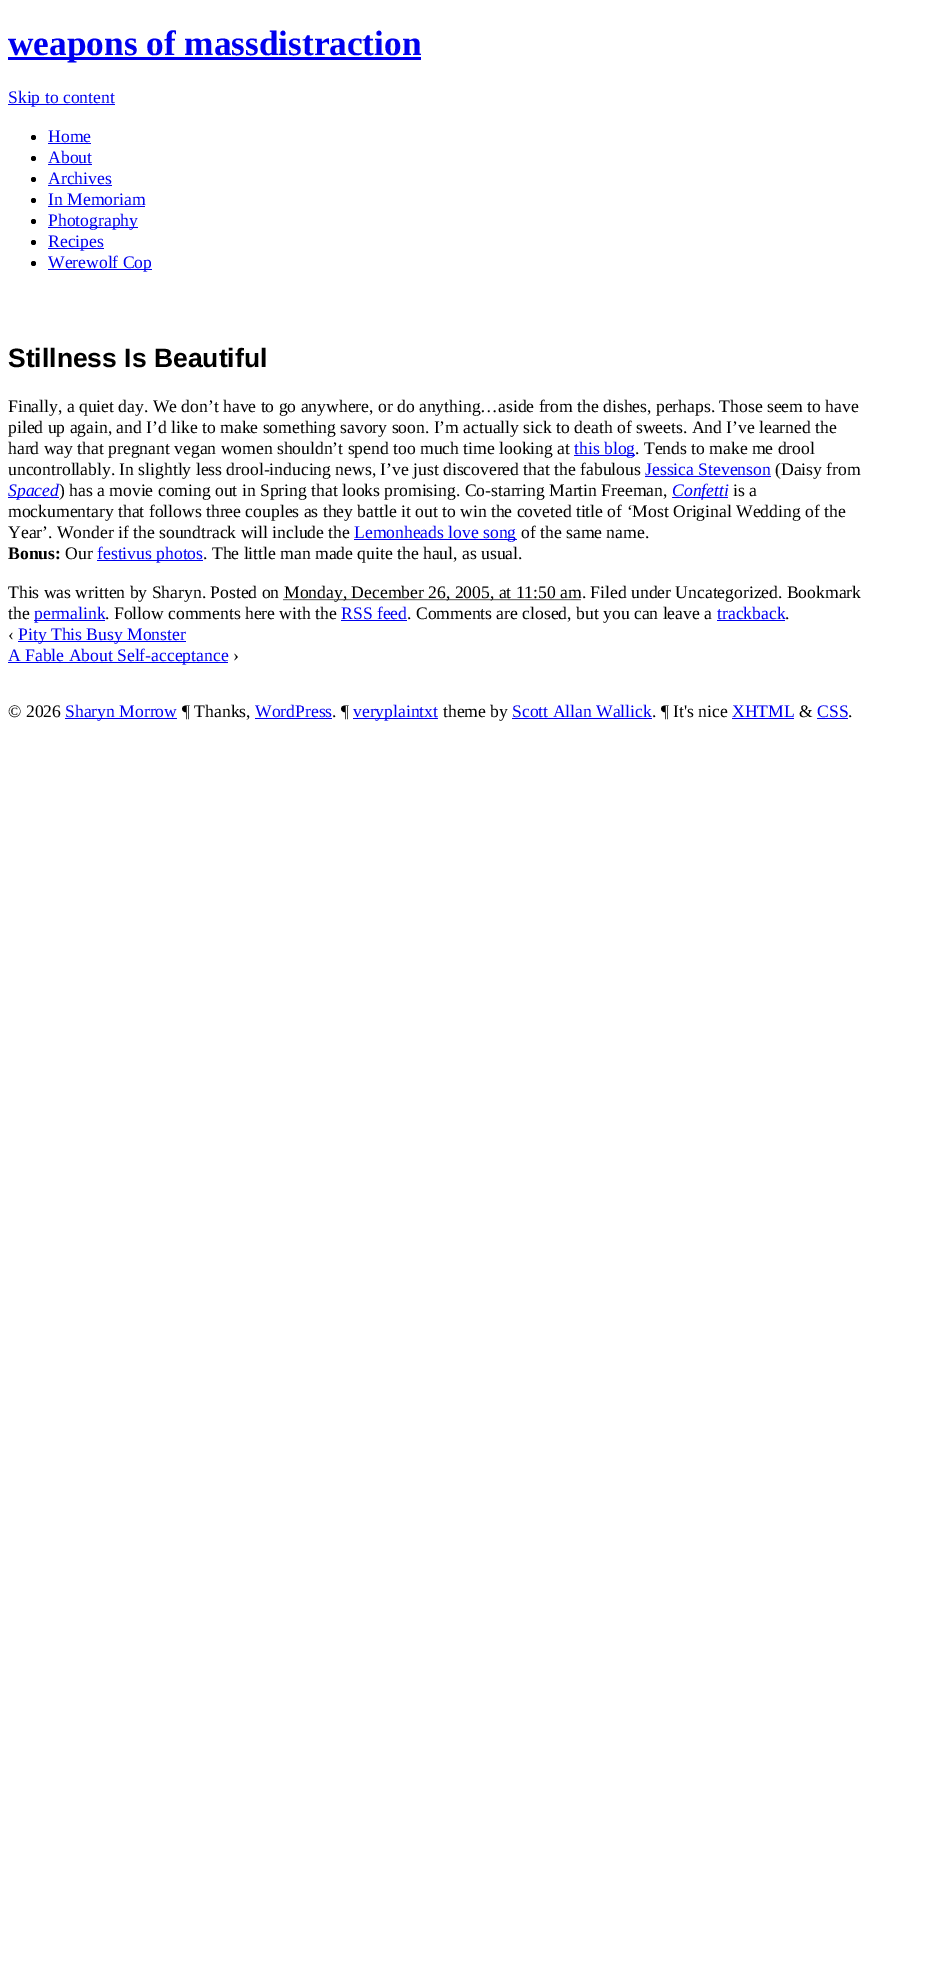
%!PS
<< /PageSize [943 1986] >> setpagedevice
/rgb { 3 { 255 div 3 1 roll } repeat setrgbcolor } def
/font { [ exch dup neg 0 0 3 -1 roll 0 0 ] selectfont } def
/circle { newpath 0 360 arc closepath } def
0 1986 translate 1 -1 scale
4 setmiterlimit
255 255 255 rgb
0 0 943 1986 rectfill
0 0 238 rgb
8 57 413 3 rectfill
8 104 107 1 rectfill
0 0 0 rgb
33.5 137.5 2.5 circle fill
0 0 238 rgb
48 143 43 1 rectfill
0 0 0 rgb
33.5 158.5 2.5 circle fill
0 0 238 rgb
48 164 44 1 rectfill
0 0 0 rgb
33.5 179.5 2.5 circle fill
0 0 238 rgb
48 185 64 1 rectfill
0 0 0 rgb
33.5 200.5 2.5 circle fill
0 0 238 rgb
48 206 97 1 rectfill
0 0 0 rgb
33.5 221.5 2.5 circle fill
0 0 238 rgb
48 227 90 1 rectfill
0 0 0 rgb
33.5 242.5 2.5 circle fill
0 0 238 rgb
48 248 56 1 rectfill
0 0 0 rgb
33.5 263.5 2.5 circle fill
[
  [48 269 104 1 0 0 238]
  [574 455 61 1 0 0 238]
  [645 476 126 1 0 0 238]
  [8 497 51 1 0 0 238]
  [672 497 56 1 0 0 238]
  [354 539 163 1 0 0 238]
  [97 560 106 1 0 0 238]
] { aload pop rgb rectfill } forall
0 0 0 rgb
[1 1] 0 setdash
283.5 599.5 moveto 581 599.5 lineto stroke
[
  [34 620 71 1 0 0 238]
  [341 620 66 1 0 0 238]
  [717 620 68 1 0 0 238]
  [18 641 168 1 0 0 238]
  [8 662 220 1 0 0 238]
  [65 718 112 1 0 0 238]
  [255 718 77 1 0 0 238]
  [353 718 85 1 0 0 238]
  [512 718 140 1 0 0 238]
  [732 718 62 1 0 0 238]
  [817 718 31 1 0 0 238]
] { aload pop rgb rectfill } forall
/LiberationSerif-Bold 35.25 font
8 55 moveto (weapons of massdistraction) show
/LiberationSerif-Regular 17.6 font
[
  [(Skip to content) 8 103]
  [(Home) 48 142]
  [(About) 48 163]
  [(Archives) 48 184]
  [(In Memoriam) 48 205]
  [(Photography) 48 226]
  [(Recipes) 48 247]
  [(Werewolf Cop) 48 268]
] { aload pop moveto show } forall
/LiberationSans-Bold 26.5 font
0 0 0 rgb
8 367 moveto (Stillness Is Beautiful) show
/LiberationSerif-Regular 17.6 font
[
  [(Finally, a quiet day. We don’t have to go anywhere, or do anything…aside from the dishes, perhaps. Those seem to have) 8 412]
  [(piled up again, and I’d like to make something savory soon. I’m actually sick to death of sweets. And I’ve learned the) 8 433]
  [(hard way that pregnant vegan women shouldn’t spend too much time looking at) 8 454]
] { aload pop moveto show } forall
0 0 238 rgb
574 454 moveto (this blog) show
0 0 0 rgb
635 454 moveto (. Tends to make me drool) show
8 475 moveto (uncontrollably. In slightly less drool-inducing news, I’ve just discovered that the fabulous) show
0 0 238 rgb
645 475 moveto (Jessica Stevenson) show
0 0 0 rgb
775 475 moveto (\(Daisy from) show
/LiberationSerif-Italic 17.6 font
0 0 238 rgb
8 496 moveto (Spaced) show
/LiberationSerif-Regular 17.6 font
0 0 0 rgb
59 496 moveto (\) has a movie coming out in Spring that looks promising. Co-starring Martin Freeman,) show
/LiberationSerif-Italic 17.6 font
0 0 238 rgb
672 496 moveto (Confetti) show
/LiberationSerif-Regular 17.6 font
0 0 0 rgb
[
  [(is a) 733 496]
  [(mockumentary that follows three couples as they battle it out to win the coveted title of ‘Most Original Wedding of the) 8 517]
  [(Year’. Wonder if the soundtrack will include the) 8 538]
] { aload pop moveto show } forall
0 0 238 rgb
354 538 moveto (Lemonheads love song) show
0 0 0 rgb
521 538 moveto (of the same name.) show
/LiberationSerif-Bold 17.6 font
8 559 moveto (Bonus:) show
/LiberationSerif-Regular 17.6 font
65 559 moveto (Our) show
0 0 238 rgb
97 559 moveto (festivus photos) show
0 0 0 rgb
[
  [(. The little man made quite the haul, as usual.) 203 559]
  [(This was written by Sharyn. Posted on) 8 598]
  [(Monday, December 26, 2005, at 11:50 am. Filed under Uncategorized. Bookmark) 284 598]
  [(the) 8 619]
] { aload pop moveto show } forall
0 0 238 rgb
34 619 moveto (permalink) show
0 0 0 rgb
105 619 moveto (. Follow comments here with the) show
0 0 238 rgb
341 619 moveto (RSS feed) show
0 0 0 rgb
407 619 moveto (. Comments are closed, but you can leave a) show
0 0 238 rgb
717 619 moveto (trackback) show
0 0 0 rgb
785 619 moveto (.) show
8 640 moveto (‹) show
0 0 238 rgb
18 640 moveto (Pity This Busy Monster) show
8 661 moveto (A Fable About Self-acceptance) show
0 0 0 rgb
233 661 moveto (›) show
8 717 moveto (© 2026) show
0 0 238 rgb
65 717 moveto (Sharyn Morrow) show
0 0 0 rgb
182 717 moveto (¶ Thanks,) show
0 0 238 rgb
255 717 moveto (WordPress) show
0 0 0 rgb
332 717 moveto (. ¶) show
0 0 238 rgb
353 717 moveto (veryplaintxt) show
0 0 0 rgb
443 717 moveto (theme by) show
0 0 238 rgb
512 717 moveto (Scott Allan Wallick) show
0 0 0 rgb
652 717 moveto (. ¶ It's nice) show
0 0 238 rgb
732 717 moveto (XHTML) show
0 0 0 rgb
799 717 moveto (&) show
0 0 238 rgb
817 717 moveto (CSS) show
0 0 0 rgb
848 717 moveto (.) show
showpage
